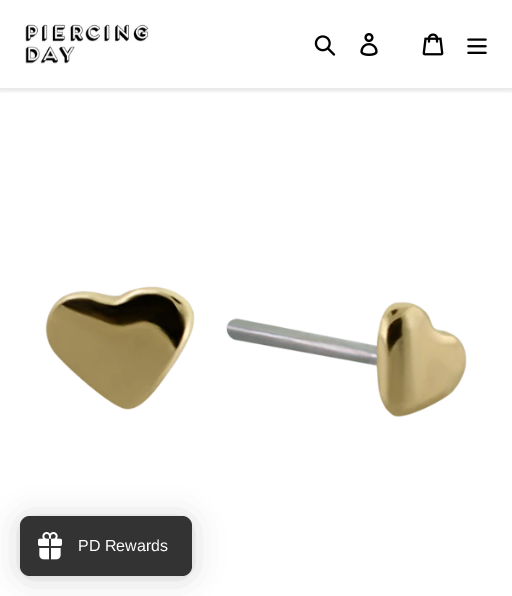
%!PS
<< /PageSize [512 596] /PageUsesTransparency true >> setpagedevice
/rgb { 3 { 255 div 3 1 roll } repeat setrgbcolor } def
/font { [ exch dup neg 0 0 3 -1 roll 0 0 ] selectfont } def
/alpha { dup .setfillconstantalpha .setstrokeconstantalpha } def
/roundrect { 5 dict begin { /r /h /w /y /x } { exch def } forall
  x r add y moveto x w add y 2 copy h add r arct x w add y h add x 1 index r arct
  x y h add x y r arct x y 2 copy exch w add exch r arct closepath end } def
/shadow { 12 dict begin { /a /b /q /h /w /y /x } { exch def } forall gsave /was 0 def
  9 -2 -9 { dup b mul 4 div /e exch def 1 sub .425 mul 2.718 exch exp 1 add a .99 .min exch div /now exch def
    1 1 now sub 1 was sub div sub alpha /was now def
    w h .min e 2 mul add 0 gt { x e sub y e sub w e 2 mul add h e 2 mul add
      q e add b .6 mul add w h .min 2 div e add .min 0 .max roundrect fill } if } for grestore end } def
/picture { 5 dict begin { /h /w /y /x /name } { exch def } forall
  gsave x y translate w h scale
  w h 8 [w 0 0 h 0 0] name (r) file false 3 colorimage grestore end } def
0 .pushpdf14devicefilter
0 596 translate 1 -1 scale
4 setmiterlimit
255 255 255 rgb
0 0 512 596 rectfill
gsave
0 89 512 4 rectclip
0 0 0 rgb
0 2 512 89 0 2 0.1 shadow
grestore
232 233 235 rgb
0 88 512 1 rectfill
(img/1.rgb) 25 24 124 40 picture
(img/2.rgb) 314 35 22 21 picture
(img/3.rgb) 360 33 18 23 picture
(img/4.rgb) 422 33 22 23 picture
(img/5.rgb) 467 38 20 16 picture
(img/6.rgb) 45 286 422 131 picture
0 0 0 rgb
20 518 172 60 10 15 0.15 shadow
20 517 172 60 10 3 0.05 shadow
51 51 51 rgb
20 516 172 60 10 roundrect fill
(img/7.rgb) 38 532 24 28 picture
/LiberationSans-Regular 16 font
255 255 255 rgb
78 551 moveto (PD Rewards) show
.poppdf14devicefilter showpage
